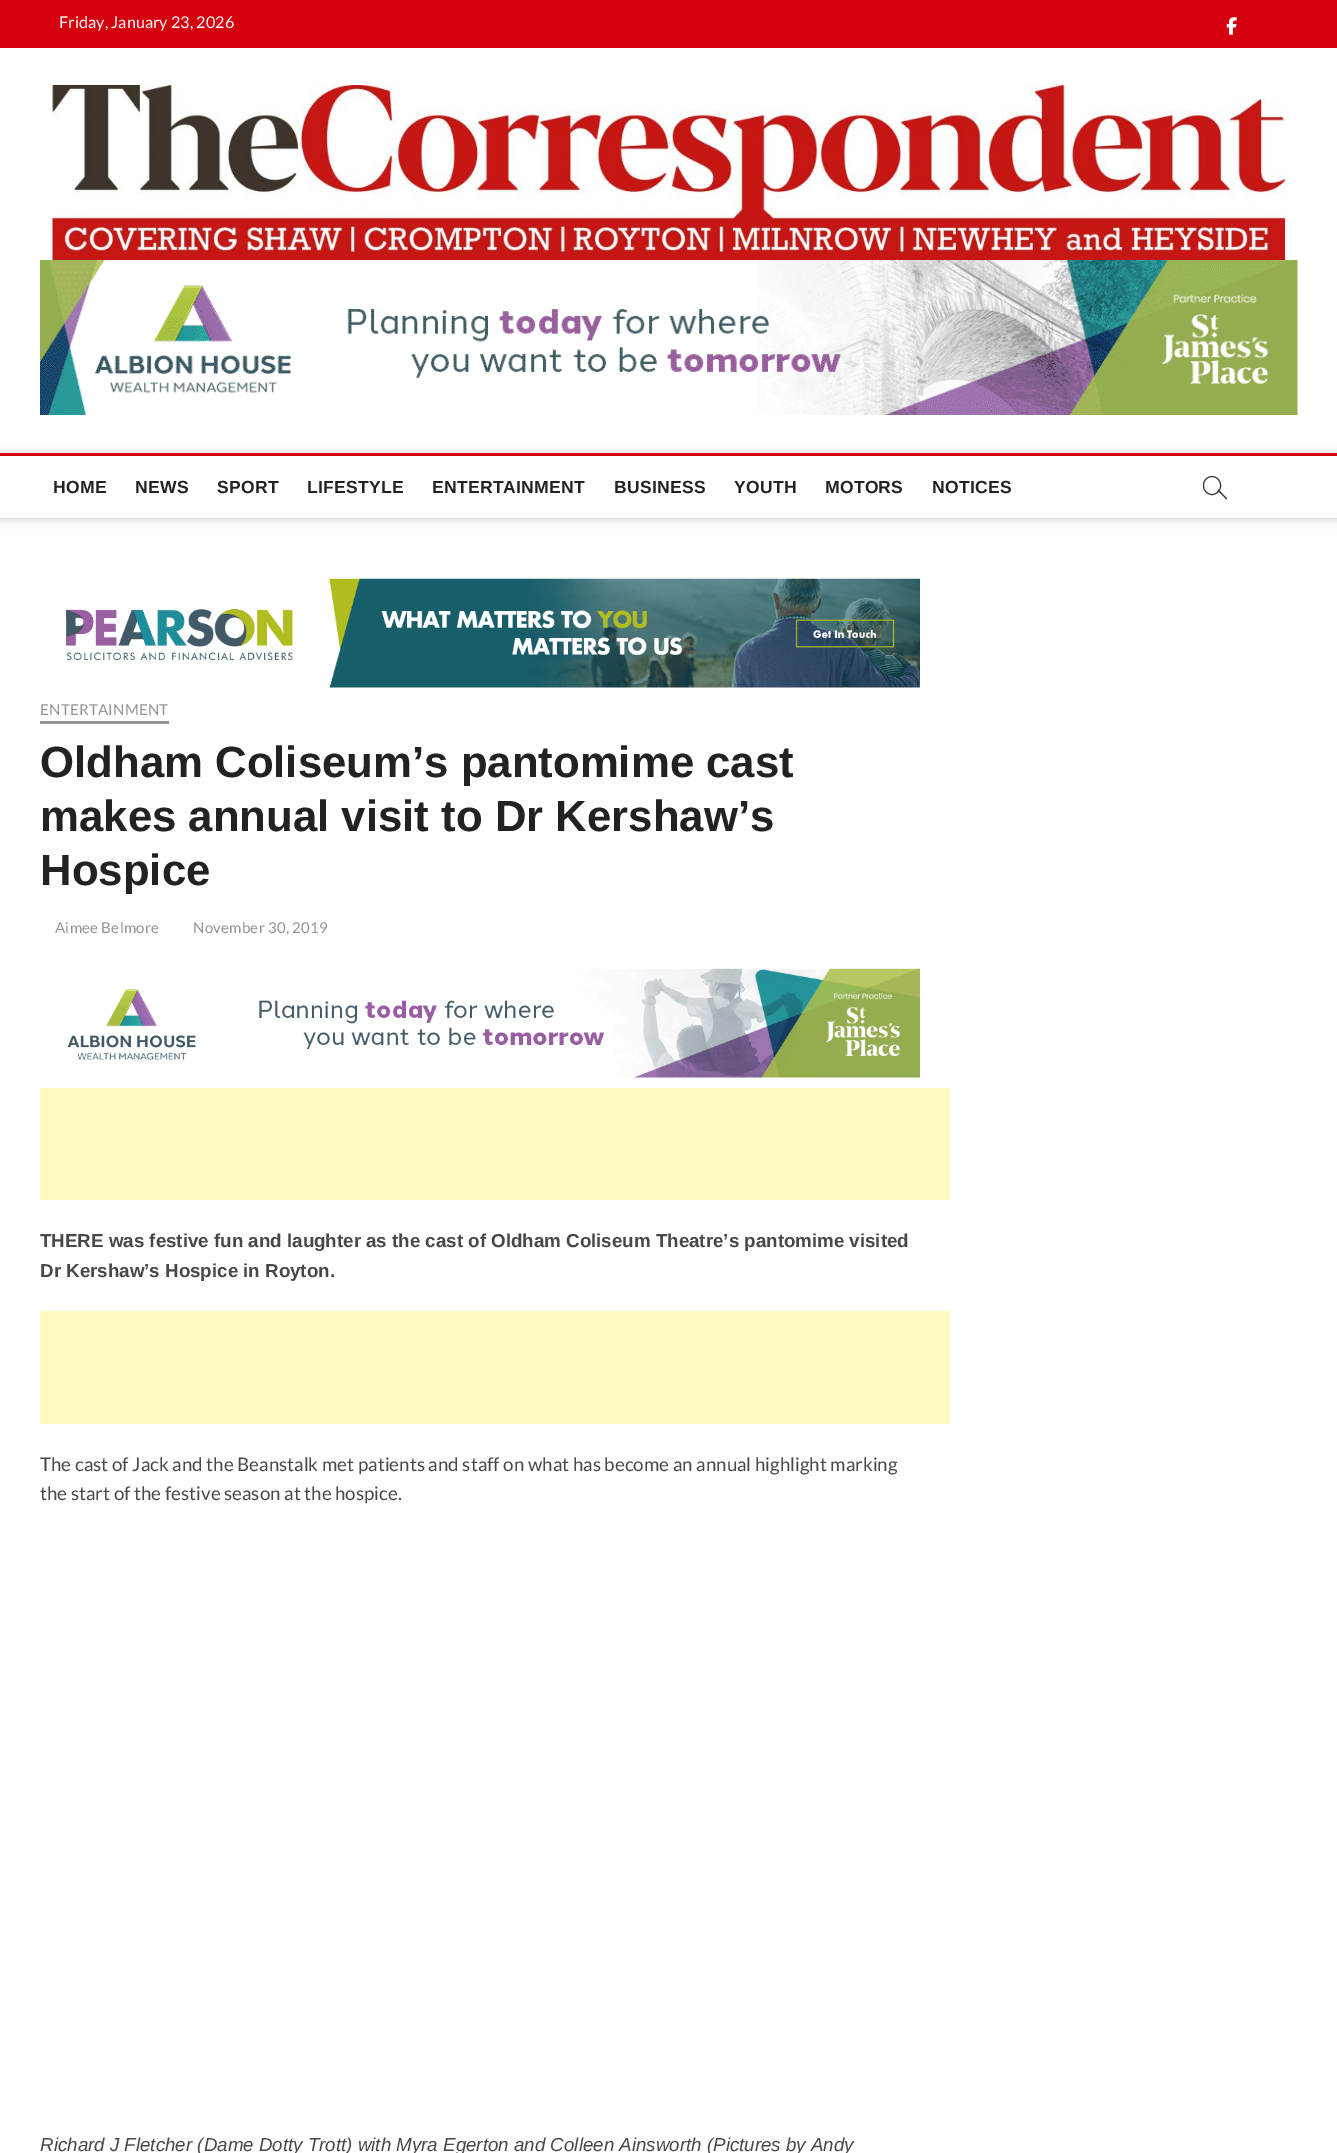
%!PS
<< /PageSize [1337 2153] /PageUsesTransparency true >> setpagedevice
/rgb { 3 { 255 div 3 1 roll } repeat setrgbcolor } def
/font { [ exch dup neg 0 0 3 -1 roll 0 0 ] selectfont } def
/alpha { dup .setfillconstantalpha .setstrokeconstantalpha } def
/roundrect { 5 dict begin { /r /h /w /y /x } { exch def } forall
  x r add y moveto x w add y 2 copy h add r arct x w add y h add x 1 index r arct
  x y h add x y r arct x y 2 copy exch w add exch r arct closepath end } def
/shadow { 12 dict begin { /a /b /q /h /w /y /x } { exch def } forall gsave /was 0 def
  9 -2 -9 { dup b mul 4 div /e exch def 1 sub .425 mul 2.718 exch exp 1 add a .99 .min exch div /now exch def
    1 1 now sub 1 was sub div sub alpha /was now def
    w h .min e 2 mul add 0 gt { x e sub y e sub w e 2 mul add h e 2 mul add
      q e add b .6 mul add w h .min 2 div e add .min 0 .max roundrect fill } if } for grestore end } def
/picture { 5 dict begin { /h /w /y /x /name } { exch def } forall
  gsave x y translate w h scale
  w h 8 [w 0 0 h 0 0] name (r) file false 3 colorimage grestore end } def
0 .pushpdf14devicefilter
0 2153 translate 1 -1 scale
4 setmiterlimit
255 255 255 rgb
0 0 1337 2153 rectfill
212 0 14 rgb
0 0 1337 48 rectfill
(img/1.rgb) 1226 17 11 18 picture
(img/2.rgb) 52 85 1233 175 picture
(img/3.rgb) 40 260 1258 155 picture
gsave
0 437 moveto 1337 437 lineto 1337 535 lineto 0 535 lineto closepath 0 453 moveto 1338 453 lineto 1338 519 lineto 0 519 lineto closepath eoclip newpath
0 0 0 rgb
0 453 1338 66 0 5 0.15 shadow
grestore
0 453 1337 3 rectfill
221 221 221 rgb
0 518 1337 1 rectfill
51 51 51 rgb
1203.5 476.5 17 18 8.5 roundrect stroke
1217.5 490.5 moveto 1218.5 489.5 lineto 1227 498.5 lineto 1226.5 499.5 lineto closepath fill
(img/4.rgb) 65 578 855 110 picture
148 148 148 rgb
40 721 129 3 rectfill
(img/5.rgb) 67 968 853 110 picture
255 249 192 rgb
40 1088 910 112 rectfill
40 1311 910 113 rectfill
/Lato-Regular 16.25 font
255 255 255 rgb
59 28 moveto (Friday, January 23, 2026) show
/LiberationSans-Bold 17.5 font
34 34 34 rgb
53 493 moveto 0.25 0 (HOME) ashow
135 493 moveto 0.25 0 (NEWS) ashow
217 493 moveto 0.25 0 (SPORT) ashow
307 493 moveto 0.25 0 (LIFESTYLE) ashow
432 493 moveto 0.25 0 (ENTERTAINMENT) ashow
614 493 moveto 0.25 0 (BUSINESS) ashow
734 493 moveto 0.25 0 (YOUTH) ashow
825 493 moveto 0.25 0 (MOTORS) ashow
932 493 moveto 0.25 0 (NOTICES) ashow
/Lato-Regular 15 font
148 148 148 rgb
40 715 moveto 0.25 0 (ENTERTAINMENT) ashow
/LiberationSans-Bold 43.75 font
34 34 34 rgb
[
  [(Oldham Coliseum’s pantomime cast) 40 777]
  [(makes annual visit to Dr Kershaw’s) 40 831]
  [(Hospice) 40 885]
] { aload pop moveto show } forall
/Lato-Regular 15 font
148 148 148 rgb
55 933 moveto 0.25 0 (Aimee Belmore) ashow
193 933 moveto 0.25 0 (November 30, 2019) ashow
/LiberationSans-Bold 18.75 font
72 72 72 rgb
40 1247 moveto (THERE was festive fun and laughter as the cast of Oldham Coliseum Theatre’s pantomime visited) show
40 1277 moveto (Dr Kershaw’s Hospice in Royton.) show
/Lato-Regular 18.75 font
40 1471 moveto (The cast of Jack and the Beanstalk met patients and staff on what has become an annual highlight marking) show
40 1500 moveto (the start of the festive season at the hospice.) show
/LiberationSans-Italic 18.75 font
40 2151 moveto (Richard J Fletcher \(Dame Dotty Trott\) with Myra Egerton and Colleen Ainsworth \(Pictures by Andy) show
.poppdf14devicefilter showpage
